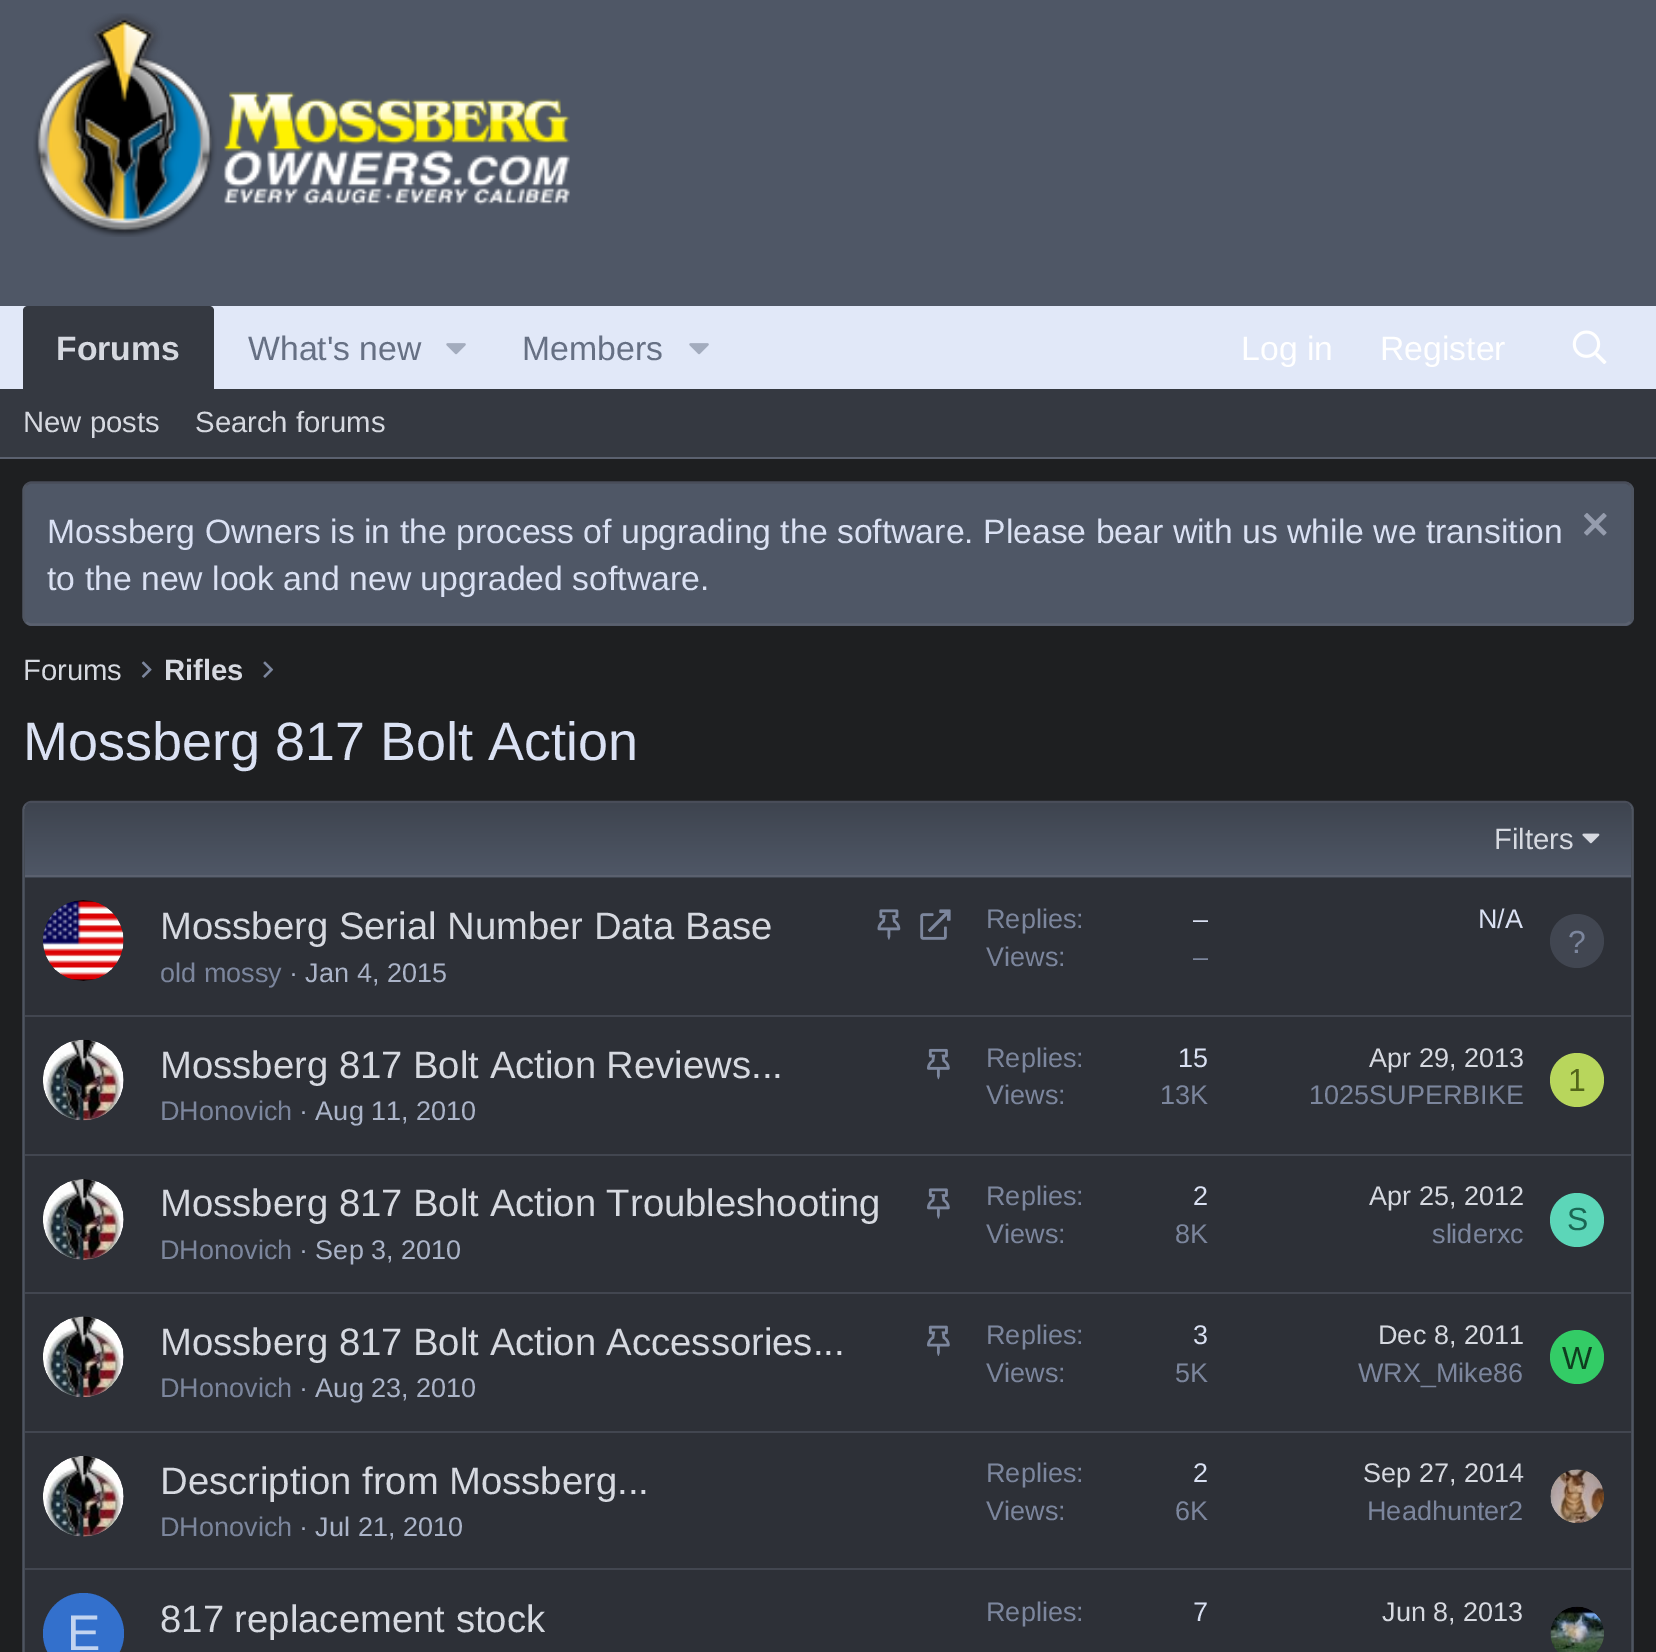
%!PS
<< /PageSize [1656 1652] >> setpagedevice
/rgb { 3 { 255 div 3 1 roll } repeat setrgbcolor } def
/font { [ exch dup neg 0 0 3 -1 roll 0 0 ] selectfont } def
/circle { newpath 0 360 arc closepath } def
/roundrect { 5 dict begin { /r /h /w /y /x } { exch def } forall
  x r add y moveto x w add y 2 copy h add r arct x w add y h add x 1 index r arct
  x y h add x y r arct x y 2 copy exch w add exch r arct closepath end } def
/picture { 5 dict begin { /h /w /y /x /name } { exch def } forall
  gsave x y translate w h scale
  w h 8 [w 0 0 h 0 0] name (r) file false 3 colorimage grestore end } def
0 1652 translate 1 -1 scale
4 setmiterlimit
30 31 33 rgb
0 0 1656 1652 rectfill
79 87 102 rgb
0 0 1656 306 rectfill
(img/1.rgb) 33 13 537 224 picture
225 232 248 rgb
0 306 1656 83 rectfill
53 57 65 rgb
28 306 moveto 209 306 lineto 212 306 214 308 214 311 curveto 214 389 lineto 23 389 lineto 23 311 lineto 23 308 25 306 28 306 curveto closepath fill
(img/2.rgb) 446 343 20 12 picture
(img/2.rgb) 689 343 20 12 picture
(img/3.rgb) 1572 330 35 34 picture
0 389 1656 68 rectfill
91 97 111 rgb
0 457 1656 2 rectfill
79 87 102 rgb
23 482 1611 144 9 roundrect fill
73 77 89 rgb
2.2 setlinewidth
26 485 moveto 27.5 483.5 29.5 482.5 31.5 482.5 curveto 1624.5 482.5 lineto 1626.5 482.5 1628.5 483.5 1630 485 curveto stroke
79 85 97 rgb
1630 485 moveto 1631.5 486.5 1632.5 488.5 1632.5 490.5 curveto 1632.5 616.5 lineto 1632.5 618.5 1631.5 620.5 1630 622 curveto stroke
91 97 111 rgb
1630 622 moveto 1628.5 623.5 1626.5 624.5 1624.5 624.5 curveto 31.5 624.5 lineto 29.5 624.5 27.5 623.5 26 622 curveto stroke
79 85 97 rgb
26 622 moveto 24.5 620.5 23.5 618.5 23.5 616.5 curveto 23.5 490.5 lineto 23.5 488.5 24.5 486.5 26 485 curveto stroke
(img/4.rgb) 1584 513 23 23 picture
(img/5.rgb) 141 661 11 17 picture
(img/6.rgb) 263 661 11 17 picture
45 48 55 rgb
23 801 1611 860 9 roundrect fill
73 77 89 rgb
26 804.5 moveto 27.5 803 29.5 802 31.5 802 curveto 1624.5 802 lineto 1626.5 802 1628.5 803 1630 804.5 curveto stroke
79 85 97 rgb
1630 804.5 moveto 1631.5 806 1632.5 808 1632.5 810 curveto 1632.5 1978 lineto 1632.5 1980 1631.5 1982 1630 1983.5 curveto stroke
26 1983.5 moveto 24.5 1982 23.5 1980 23.5 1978 curveto 23.5 810 lineto 23.5 808 24.5 806 26 804.5 curveto stroke
gsave 32 803 moveto 1624 803 lineto 1628 803 1631 806 1631 810 curveto 1631 875 lineto 25 875 lineto 25 810 lineto 25 806 28 803 32 803 curveto closepath clip newpath
<< /ShadingType 2 /ColorSpace /DeviceRGB /Coords [828 875 828 803] /Extend [true true] /Function << /FunctionType 2 /Domain [0 1] /C0 [0.31 0.341 0.4] /C1 [0.243 0.267 0.31] /N 1 >> >> shfill grestore
gsave 25 877 moveto 1631 877 lineto 1631 878 lineto 25 878 lineto closepath clip newpath
<< /ShadingType 2 /ColorSpace /DeviceRGB /Coords [828 947 828 875] /Extend [true true] /Function << /FunctionType 2 /Domain [0 1] /C0 [0.31 0.341 0.4] /C1 [0.243 0.267 0.31] /N 1 >> >> shfill grestore
91 97 111 rgb
25 875 1606 2 rectfill
(img/7.rgb) 1582 833 18 11 picture
(img/8.rgb) 43 900 81 81 picture
(img/9.rgb) 877 909 24 31 picture
(img/10.rgb) 920 909 31 31 picture
65 70 81 rgb
1577 941 27 circle fill
66 70 80 rgb
25 1015 1606 2 rectfill
(img/11.rgb) 43 1039 81 82 picture
(img/12.rgb) 927 1048 23 32 picture
184 214 92 rgb
1577 1080 27 circle fill
66 70 80 rgb
25 1154 1606 2 rectfill
(img/13.rgb) 43 1179 81 81 picture
(img/14.rgb) 927 1188 23 31 picture
92 214 184 rgb
1577 1220 27 circle fill
66 70 80 rgb
25 1292 1606 2 rectfill
(img/15.rgb) 43 1316 81 81 picture
(img/16.rgb) 927 1325 23 31 picture
51 204 102 rgb
1577 1357 27 circle fill
66 70 80 rgb
25 1431 1606 2 rectfill
(img/17.rgb) 42 1456 82 81 picture
(img/18.rgb) 1550 1469 54 54 picture
25 1568 1606 2 rectfill
51 112 204 rgb
83.5 1633.5 40.5 circle fill
(img/19.rgb) 1550 1606 54 46 picture
/LiberationSans-Bold 33.75 font
214 217 224 rgb
56 360 moveto (Forums) show
/LiberationSans-Regular 33.75 font
102 112 132 rgb
248 360 moveto (What's new) show
522 360 moveto (Members) show
255 255 255 rgb
1241 360 moveto (Log in) show
1380 360 moveto (Register) show
/LiberationSans-Regular 29.25 font
214 217 224 rgb
23 432 moveto (New posts) show
195 432 moveto (Search forums) show
/LiberationSans-Regular 33.75 font
218 225 243 rgb
47 543 moveto (Mossberg Owners is in the process of upgrading the software. Please bear with us while we transition) show
47 590 moveto (to the new look and new upgraded software.) show
/LiberationSans-Regular 29.25 font
214 217 224 rgb
23 680 moveto (Forums) show
/LiberationSans-Bold 29.25 font
164 680 moveto (Rifles) show
/LiberationSans-Regular 54 font
218 225 243 rgb
23 760 moveto (Mossberg 817 Bolt Action) show
/LiberationSans-Regular 29.25 font
214 217 224 rgb
1494 849 moveto (Filters) show
/LiberationSans-Regular 38.25 font
160 939 moveto (Mossberg Serial Number Data Base) show
/LiberationSans-Regular 27 font
124 134 157 rgb
160 982 moveto (old mossy) show
171 180 200 rgb
289 982 moveto (· Jan 4, 2015) show
124 134 157 rgb
986 928 moveto (Replies:) show
218 225 243 rgb
1193 928 moveto (–) show
124 134 157 rgb
986 966 moveto (Views:) show
1193 966 moveto (–) show
218 225 243 rgb
1478 928 moveto (N/A) show
/LiberationSans-Regular 32 font
124 134 157 rgb
1568 953 moveto (?) show
/LiberationSans-Regular 38.25 font
214 217 224 rgb
160 1078 moveto (Mossberg 817 Bolt Action Reviews...) show
/LiberationSans-Regular 27 font
124 134 157 rgb
160 1120 moveto (DHonovich) show
171 180 200 rgb
299 1120 moveto (· Aug 11, 2010) show
124 134 157 rgb
986 1067 moveto (Replies:) show
218 225 243 rgb
1178 1067 moveto (15) show
124 134 157 rgb
986 1104 moveto (Views:) show
1160 1104 moveto (13K) show
214 217 224 rgb
1369 1067 moveto (Apr 29, 2013) show
124 134 157 rgb
1309 1104 moveto (1025SUPERBIKE) show
/LiberationSans-Regular 32 font
83 102 26 rgb
1568 1091 moveto (1) show
/LiberationSans-Regular 38.25 font
214 217 224 rgb
160 1216 moveto (Mossberg 817 Bolt Action Troubleshooting) show
/LiberationSans-Regular 27 font
124 134 157 rgb
160 1259 moveto (DHonovich) show
171 180 200 rgb
299 1259 moveto (· Sep 3, 2010) show
124 134 157 rgb
986 1205 moveto (Replies:) show
218 225 243 rgb
1193 1205 moveto (2) show
124 134 157 rgb
986 1243 moveto (Views:) show
1175 1243 moveto (8K) show
214 217 224 rgb
1369 1205 moveto (Apr 25, 2012) show
124 134 157 rgb
1432 1243 moveto (sliderxc) show
/LiberationSans-Regular 32 font
26 102 83 rgb
1567 1230 moveto (S) show
/LiberationSans-Regular 38.25 font
214 217 224 rgb
160 1355 moveto (Mossberg 817 Bolt Action Accessories...) show
/LiberationSans-Regular 27 font
124 134 157 rgb
160 1397 moveto (DHonovich) show
171 180 200 rgb
299 1397 moveto (· Aug 23, 2010) show
124 134 157 rgb
986 1344 moveto (Replies:) show
218 225 243 rgb
1193 1344 moveto (3) show
124 134 157 rgb
986 1382 moveto (Views:) show
1175 1382 moveto (5K) show
214 217 224 rgb
1378 1344 moveto (Dec 8, 2011) show
124 134 157 rgb
1358 1382 moveto (WRX_Mike86) show
/LiberationSans-Regular 32 font
15 61 31 rgb
1562 1369 moveto (W) show
/LiberationSans-Regular 38.25 font
214 217 224 rgb
160 1494 moveto (Description from Mossberg...) show
/LiberationSans-Regular 27 font
124 134 157 rgb
160 1536 moveto (DHonovich) show
171 180 200 rgb
299 1536 moveto (· Jul 21, 2010) show
124 134 157 rgb
986 1482 moveto (Replies:) show
218 225 243 rgb
1193 1482 moveto (2) show
124 134 157 rgb
986 1520 moveto (Views:) show
1175 1520 moveto (6K) show
214 217 224 rgb
1363 1482 moveto (Sep 27, 2014) show
124 134 157 rgb
1367 1520 moveto (Headhunter2) show
/LiberationSans-Regular 50 font
194 212 240 rgb
67 1650 moveto (E) show
/LiberationSans-Regular 38.25 font
214 217 224 rgb
160 1632 moveto (817 replacement stock) show
/LiberationSans-Regular 27 font
124 134 157 rgb
986 1621 moveto (Replies:) show
218 225 243 rgb
1193 1621 moveto (7) show
214 217 224 rgb
1382 1621 moveto (Jun 8, 2013) show
showpage
